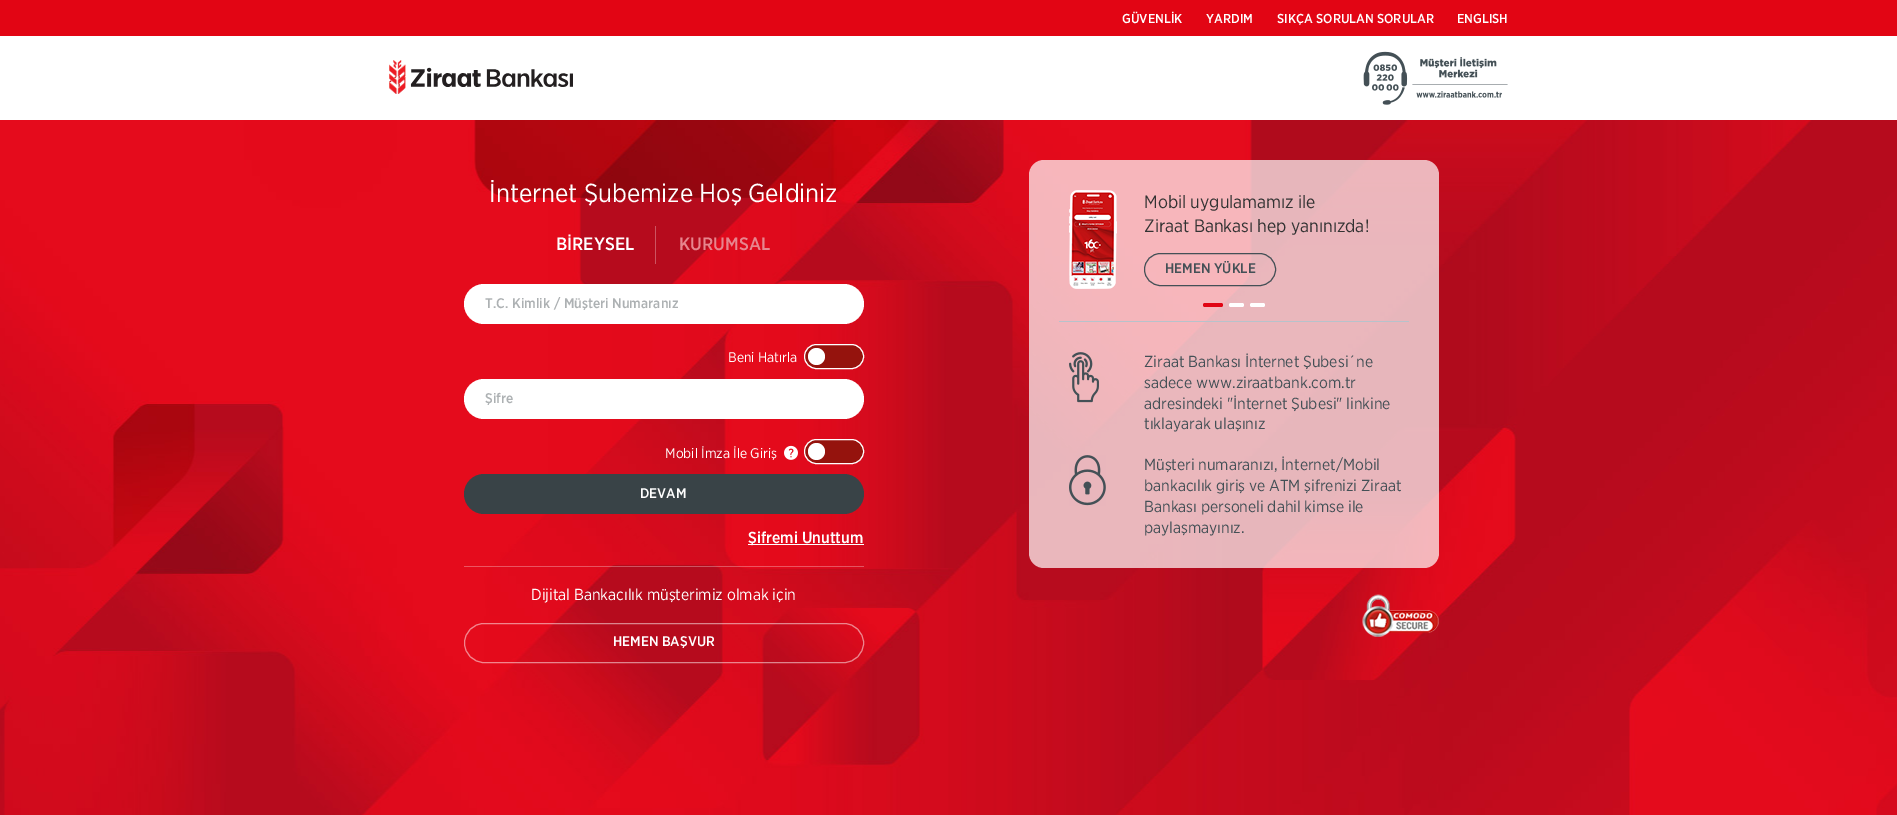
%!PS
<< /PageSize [1897 815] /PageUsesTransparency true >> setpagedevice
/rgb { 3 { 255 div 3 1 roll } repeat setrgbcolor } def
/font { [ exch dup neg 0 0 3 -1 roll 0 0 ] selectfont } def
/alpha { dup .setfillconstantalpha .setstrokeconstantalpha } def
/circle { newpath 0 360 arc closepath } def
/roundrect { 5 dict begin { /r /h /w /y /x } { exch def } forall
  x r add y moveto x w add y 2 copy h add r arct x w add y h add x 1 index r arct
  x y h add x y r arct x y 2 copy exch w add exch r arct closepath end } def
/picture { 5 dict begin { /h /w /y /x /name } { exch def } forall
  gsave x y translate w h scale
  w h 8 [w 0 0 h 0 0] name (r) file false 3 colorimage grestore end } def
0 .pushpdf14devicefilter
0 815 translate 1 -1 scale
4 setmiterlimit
255 255 255 rgb
0 0 1897 815 rectfill
(img/1.rgb) 0 120 1897 695 picture
226 5 20 rgb
0 0 1897 36 rectfill
(img/2.rgb) 389 60 184 34 picture
(img/3.rgb) 1363 51 145 54 picture
204 84 97 rgb
655 226 1 38 rectfill
255 255 255 rgb
464 284 400 40 20 roundrect fill
149 19 13 rgb
804.5 344.5 59 24 12 roundrect gsave fill grestore
255 255 255 rgb
stroke
816.5 356.5 8.5 circle fill
464 379 400 40 20 roundrect fill
(img/4.rgb) 784 445 14 15 picture
149 19 13 rgb
804.5 439.5 59 24 12 roundrect gsave fill grestore
255 255 255 rgb
stroke
816.5 451.5 8.5 circle fill
57 67 71 rgb
464 474 400 40 20 roundrect fill
255 255 255 rgb
748 544 116 1 rectfill
0.3 alpha
464 566 400 1 rectfill
0.5 alpha
464.5 623.5 399 39 19.5 roundrect stroke
0.7 alpha
1029 160 410 408 15 roundrect fill
1 alpha
183 194 203 rgb
1059 321 350 1 rectfill
(img/5.rgb) 1069 190 48 99 picture
68 80 86 rgb
1144.5 253.5 131 32 16 roundrect stroke
225 5 20 rgb
1203 303 20 4 2 roundrect fill
255 255 255 rgb
1229 303 15 4 2 roundrect fill
1250 303 15 4 2 roundrect fill
(img/6.rgb) 1069 352 30 51 picture
(img/7.rgb) 1069 455 37 51 picture
(img/8.rgb) 1362 594 77 43 picture
/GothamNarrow-Medium 13 font
[
  [(GÜVENLİK) 1122 23]
  [(YARDIM) 1206 23]
  [(SIKÇA SORULAN SORULAR) 1277 23]
  [(ENGLISH) 1457 23]
] { aload pop moveto show } forall
/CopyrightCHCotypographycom-Light 26 font
489 202 moveto (İnternet Şubemize Hoş Geldiniz) show
/GothamNarrow-Medium 18 font
556 250 moveto (BİREYSEL) show
231 133 142 rgb
679 250 moveto (KURUMSAL) show
/GothamNarrow-Medium 14 font
173 177 179 rgb
485 308 moveto (T.C. Kimlik / Müşteri Numaranız) show
/CopyrightCHCotypographycom-Light 14 font
255 255 255 rgb
728 362 moveto (Beni Hatırla) show
/GothamNarrow-Medium 14 font
173 177 179 rgb
485 403 moveto (Şifre) show
/CopyrightCHCotypographycom-Light 14 font
255 255 255 rgb
665 458 moveto (Mobil İmza İle Giriş) show
/GothamNarrow-Medium 14 font
640 498 moveto (DEVAM) show
/GothamNarrow-Medium 16 font
748 543 moveto (Şifremi Unuttum) show
/CopyrightCHCotypographycom-Light 16 font
531 600 moveto (Dijital Bankacılık müşterimiz olmak için) show
/GothamNarrow-Medium 14 font
613 646 moveto (HEMEN BAŞVUR) show
/CopyrightCHCotypographycom-Light 18 font
51 51 51 rgb
1144 208 moveto (Mobil uygulamamız ile) show
1144 232 moveto (Ziraat Bankası hep yanınızda!) show
/GothamNarrow-Medium 14 font
68 80 86 rgb
1165 273 moveto (HEMEN YÜKLE) show
/CopyrightCHCotypographycom-Light 16 font
[
  [(Ziraat Bankası İnternet Şubesi´ne) 1144 367]
  [(sadece www.ziraatbank.com.tr) 1144 388]
  [(adresindeki "İnternet Şubesi" linkine) 1144 409]
  [(tıklayarak ulaşınız) 1144 429]
  [(Müşteri numaranızı, İnternet/Mobil) 1144 470]
  [(bankacılık giriş ve ATM şifrenizi Ziraat) 1144 491]
  [(Bankası personeli dahil kimse ile) 1144 512]
  [(paylaşmayınız.) 1144 533]
] { aload pop moveto show } forall
.poppdf14devicefilter showpage
